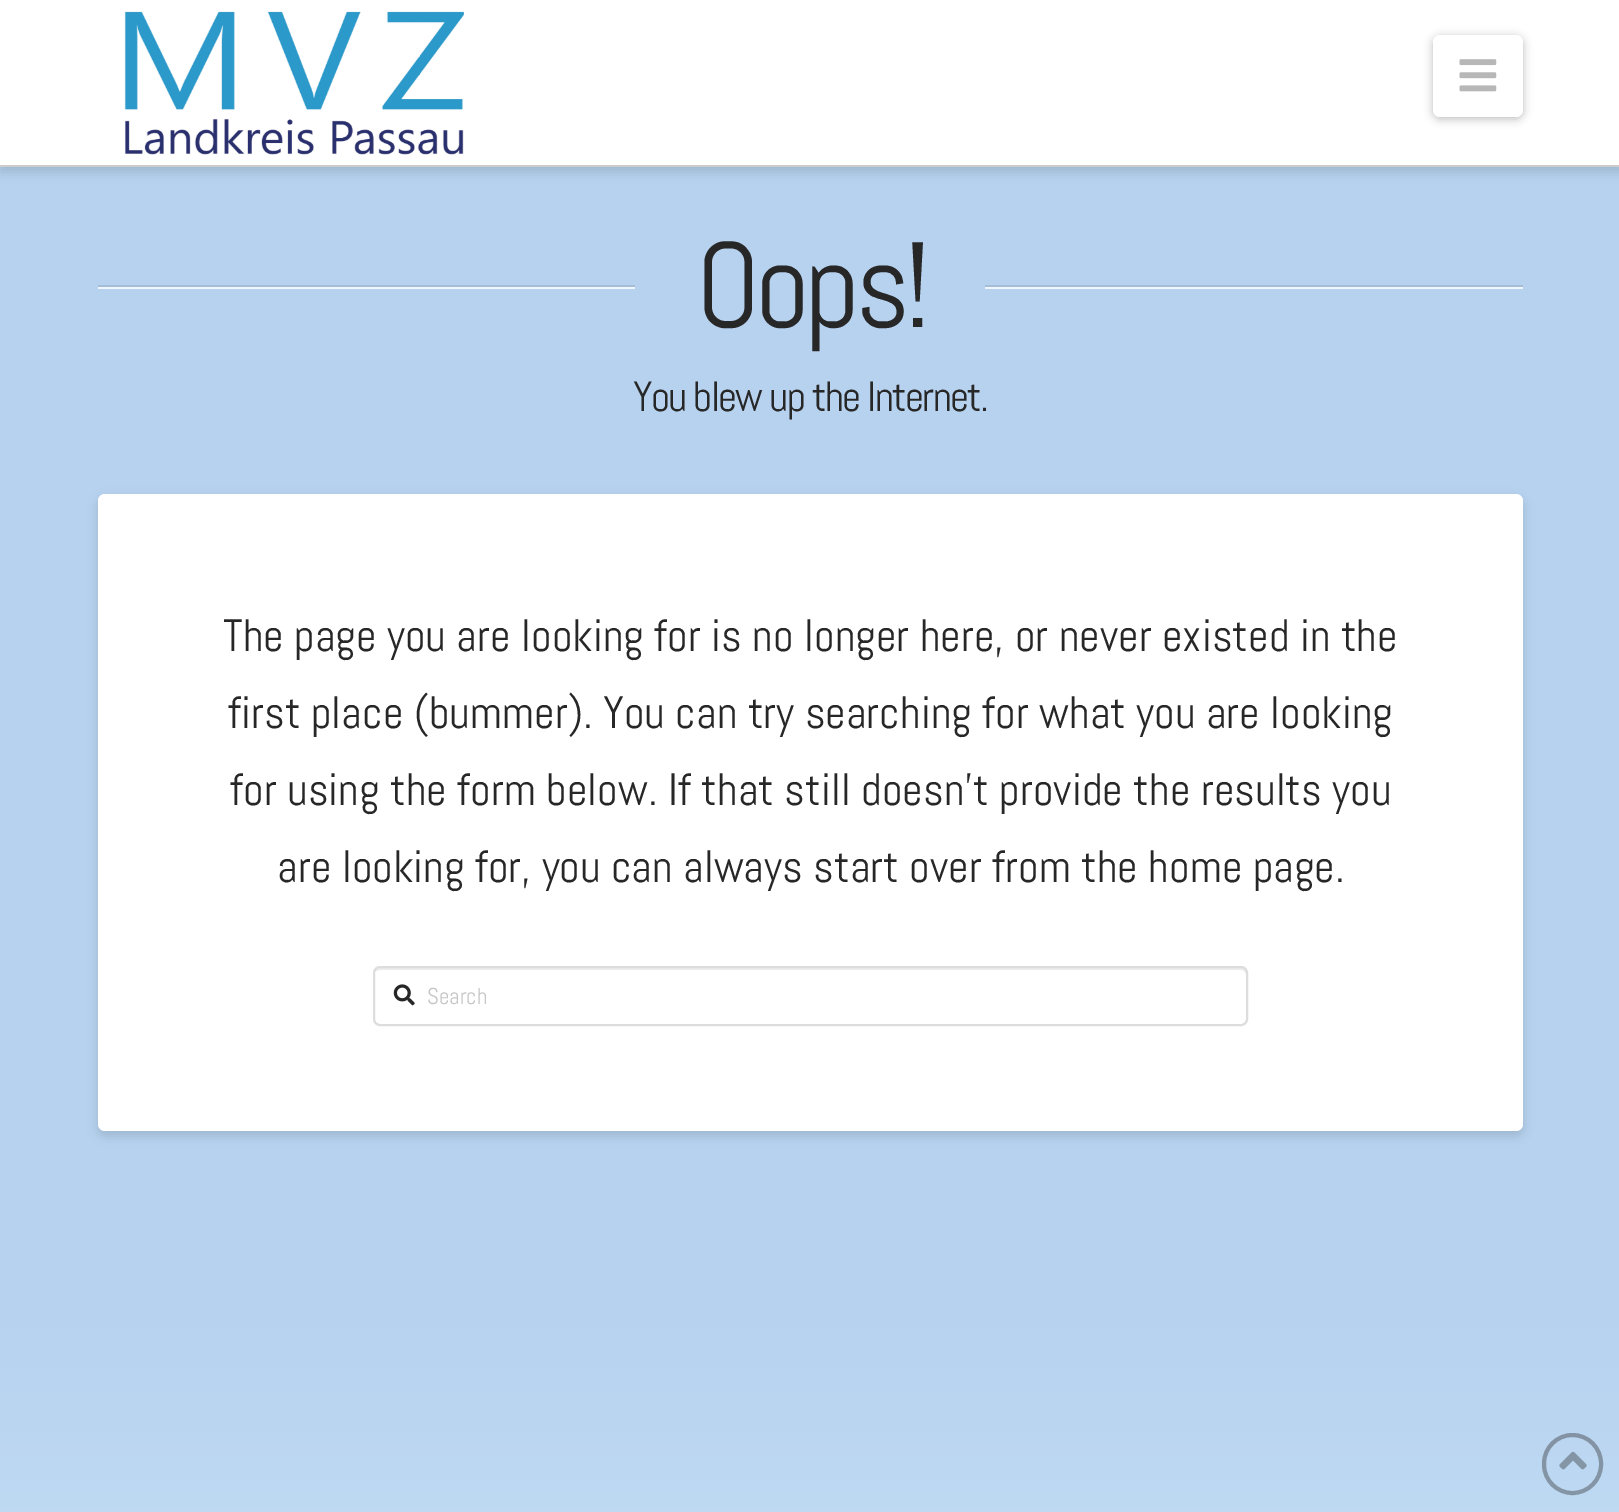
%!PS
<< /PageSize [1619 1512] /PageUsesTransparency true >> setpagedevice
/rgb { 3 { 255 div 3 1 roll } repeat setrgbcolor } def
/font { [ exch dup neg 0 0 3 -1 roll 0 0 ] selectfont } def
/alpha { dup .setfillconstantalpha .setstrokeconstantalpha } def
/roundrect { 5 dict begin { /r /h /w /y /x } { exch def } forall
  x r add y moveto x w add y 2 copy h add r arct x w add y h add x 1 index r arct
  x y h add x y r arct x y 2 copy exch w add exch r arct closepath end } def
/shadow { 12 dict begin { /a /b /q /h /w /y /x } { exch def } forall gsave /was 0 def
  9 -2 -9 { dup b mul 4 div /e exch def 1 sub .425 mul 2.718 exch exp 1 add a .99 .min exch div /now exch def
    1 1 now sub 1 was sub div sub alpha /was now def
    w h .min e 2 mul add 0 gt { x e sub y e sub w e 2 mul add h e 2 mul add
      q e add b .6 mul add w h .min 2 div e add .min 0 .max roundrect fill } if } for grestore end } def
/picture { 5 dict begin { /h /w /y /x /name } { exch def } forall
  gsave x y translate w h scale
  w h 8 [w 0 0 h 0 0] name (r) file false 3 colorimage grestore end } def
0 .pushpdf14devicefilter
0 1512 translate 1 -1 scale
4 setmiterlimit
255 255 255 rgb
0 0 1619 1512 rectfill
(img/1.rgb) 0 167 1619 1345 picture
0 0 0 rgb
0 5 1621 167 0 5.5 0.13 shadow
255 255 255 rgb
0 0 1619 165 rectfill
204 204 204 rgb
0 165 1619 2 rectfill
(img/2.rgb) 124 11 340 144 picture
0 0 0 rgb
1433 37 90 82 7 4.5 0.25 shadow
255 255 255 rgb
1433 35 90 82 7 roundrect fill
(img/3.rgb) 1459 59 38 33 picture
[
  [98 287 537 2 240 246 252]
  [98 285 537 2 165 189 215]
  [985 287 538 2 240 246 252]
  [985 285 538 2 165 189 215]
] { aload pop rgb rectfill } forall
0 0 0 rgb
98 499 1425 637 7 5.5 0.13 shadow
255 255 255 rgb
98 494 1425 637 7 roundrect fill
236 236 236 rgb
380 970 moveto 1241 970 lineto 1244 970 1246 972 1246 975 curveto 1246 973 lineto 1246 970 1244 968 1241 968 curveto 380 968 lineto 378 968 375 970 375 972 curveto 376 971 378 970 380 970 curveto closepath fill
221 221 221 rgb
2 setlinewidth
374 967 873 58 6 roundrect stroke
(img/4.rgb) 393 984 22 22 picture
0.38 alpha
39 39 39 rgb
4 setlinewidth
1544 1435 57 58 28.5 roundrect stroke
1 alpha
(img/5.rgb) 1559 1451 28 19 picture
/Abel-Regular 121 font
696 327 moveto -5.25 0 (Oops!) ashow
/Abel-Regular 42 font
633 411 moveto -1.75 0 (You blew up the Internet.) ashow
/Abel-Regular 45.3 font
[
  [(The page you are looking for is no longer here, or never existed in the) 223 651]
  [(first place \(bummer\). You can try searching for what you are looking) 228 728]
  [(for using the form below. If that still doesn't provide the results you) 230 805]
  [(are looking for, you can always start over from the home page.) 277 882]
] { aload pop moveto show } forall
/Abel-Regular 23 font
197 197 197 rgb
427 1004 moveto (Search) show
.poppdf14devicefilter showpage
